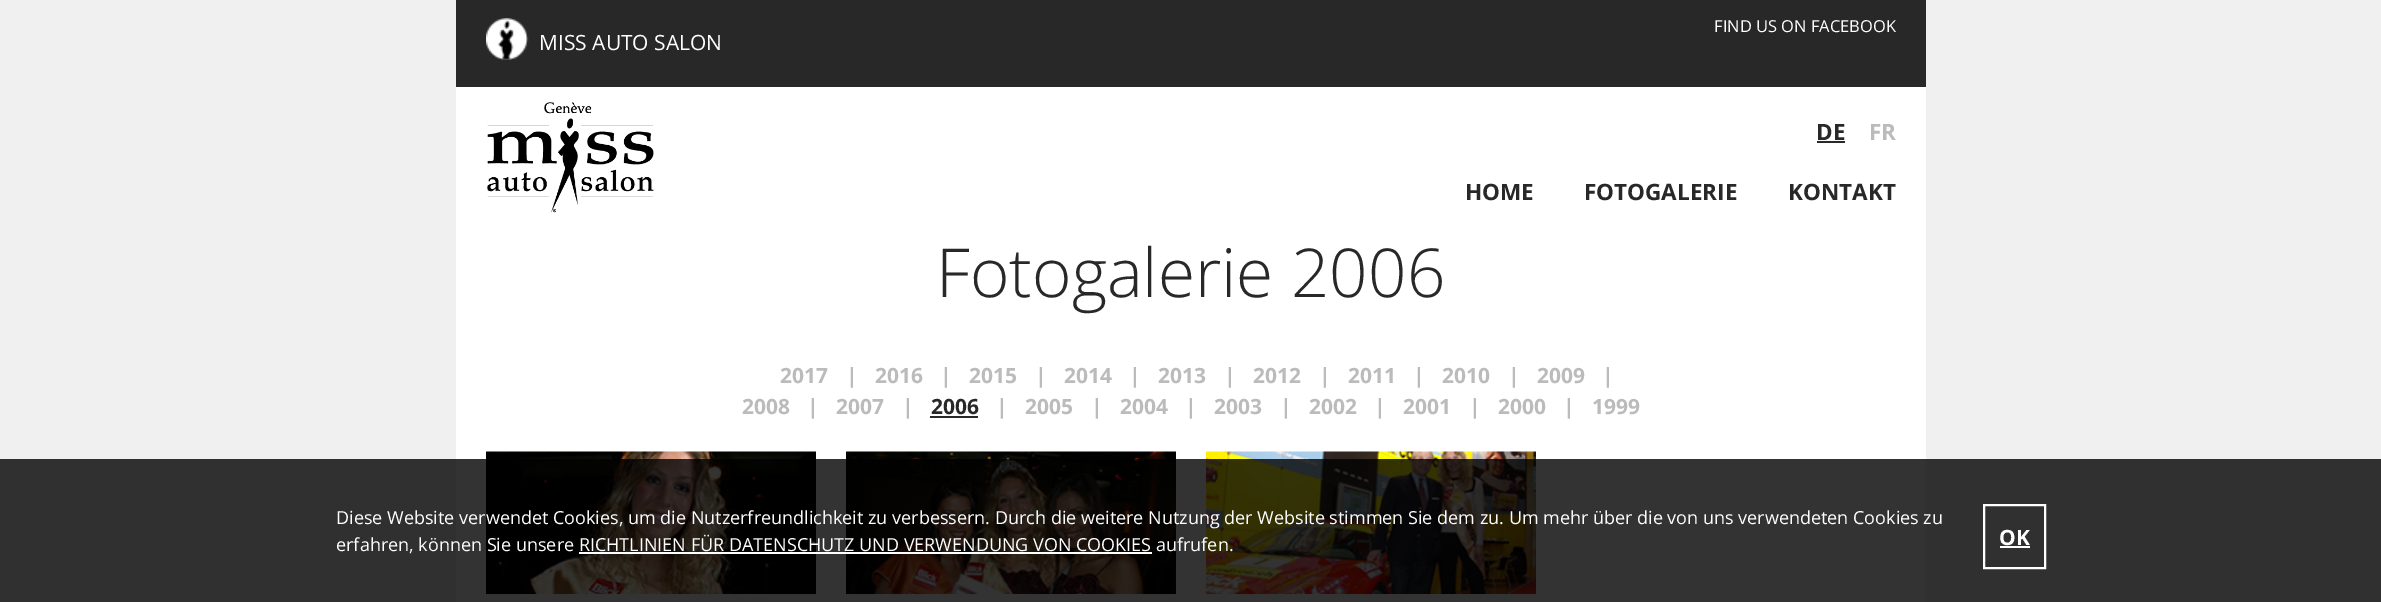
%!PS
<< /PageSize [2381 602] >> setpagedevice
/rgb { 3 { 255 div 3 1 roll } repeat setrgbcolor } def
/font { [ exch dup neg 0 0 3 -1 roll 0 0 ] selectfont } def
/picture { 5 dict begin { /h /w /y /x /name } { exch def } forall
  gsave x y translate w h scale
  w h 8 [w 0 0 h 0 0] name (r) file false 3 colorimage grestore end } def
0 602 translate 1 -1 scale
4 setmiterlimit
240 240 240 rgb
0 0 2381 602 rectfill
48 48 48 rgb
0 459 2381 143 rectfill
40 40 40 rgb
456 0 1470 87 rectfill
(img/1.rgb) 486 18 43 42 picture
255 255 255 rgb
456 87 1470 372 rectfill
(img/2.rgb) 487 102 167 111 picture
[
  [1817 141 28 2 40 40 40]
  [930 416 48 2 40 40 40]
  [456 459 1470 143 51 51 51]
] { aload pop rgb rectfill } forall
(img/3.rgb) 486 451 330 143 picture
(img/4.rgb) 846 451 330 143 picture
(img/5.rgb) 1206 451 330 143 picture
255 255 255 rgb
579 552 573 2 rectfill
2 setlinewidth
1984 505 61 63 rectstroke
2000 546 30 2 rectfill
/OpenSans-Regular 16.5 font
1714 32 moveto (FIND US ON FACEBOOK) show
/OpenSans-Regular 21 font
539 50 moveto (MISS AUTO SALON) show
/OpenSans-Bold 22.5 font
40 40 40 rgb
1816 140 moveto (DE) show
187 187 187 rgb
1869 140 moveto (FR) show
40 40 40 rgb
[
  [(HOME) 1465 200]
  [(FOTOGALERIE) 1584 200]
  [(KONTAKT) 1788 200]
] { aload pop moveto show } forall
/OpenSans-Light 67.5 font
936 297 moveto (Fotogalerie 2006) show
/OpenSans-Bold 21 font
187 187 187 rgb
[
  [(2017) 780 383]
  [(|) 846 383]
  [(2016) 875 383]
  [(|) 940 383]
  [(2015) 969 383]
  [(|) 1035 383]
  [(2014) 1064 383]
  [(|) 1129 383]
  [(2013) 1158 383]
  [(|) 1224 383]
  [(2012) 1253 383]
  [(|) 1319 383]
  [(2011) 1348 383]
  [(|) 1413 383]
  [(2010) 1442 383]
  [(|) 1508 383]
  [(2009) 1537 383]
  [(|) 1602 383]
  [(2008) 742 414]
  [(|) 807 414]
  [(2007) 836 414]
  [(|) 902 414]
] { aload pop moveto show } forall
40 40 40 rgb
931 414 moveto (2006) show
187 187 187 rgb
[
  [(|) 996 414]
  [(2005) 1025 414]
  [(|) 1091 414]
  [(2004) 1120 414]
  [(|) 1185 414]
  [(2003) 1214 414]
  [(|) 1280 414]
  [(2002) 1309 414]
  [(|) 1374 414]
  [(2001) 1403 414]
  [(|) 1469 414]
  [(2000) 1498 414]
  [(|) 1563 414]
  [(1999) 1592 414]
] { aload pop moveto show } forall
/OpenSans-Regular 18 font
255 255 255 rgb
336 524 moveto (Diese Website verwendet Cookies, um die Nutzerfreundlichkeit zu verbessern. Durch die weitere Nutzung der Website stimmen Sie dem zu. Um mehr über die von uns verwendeten Cookies zu) show
336 551 moveto (erfahren, können Sie unsere RICHTLINIEN FÜR DATENSCHUTZ UND VERWENDUNG VON COOKIES aufrufen.) show
/OpenSans-Bold 21 font
1999 545 moveto (OK) show
showpage
